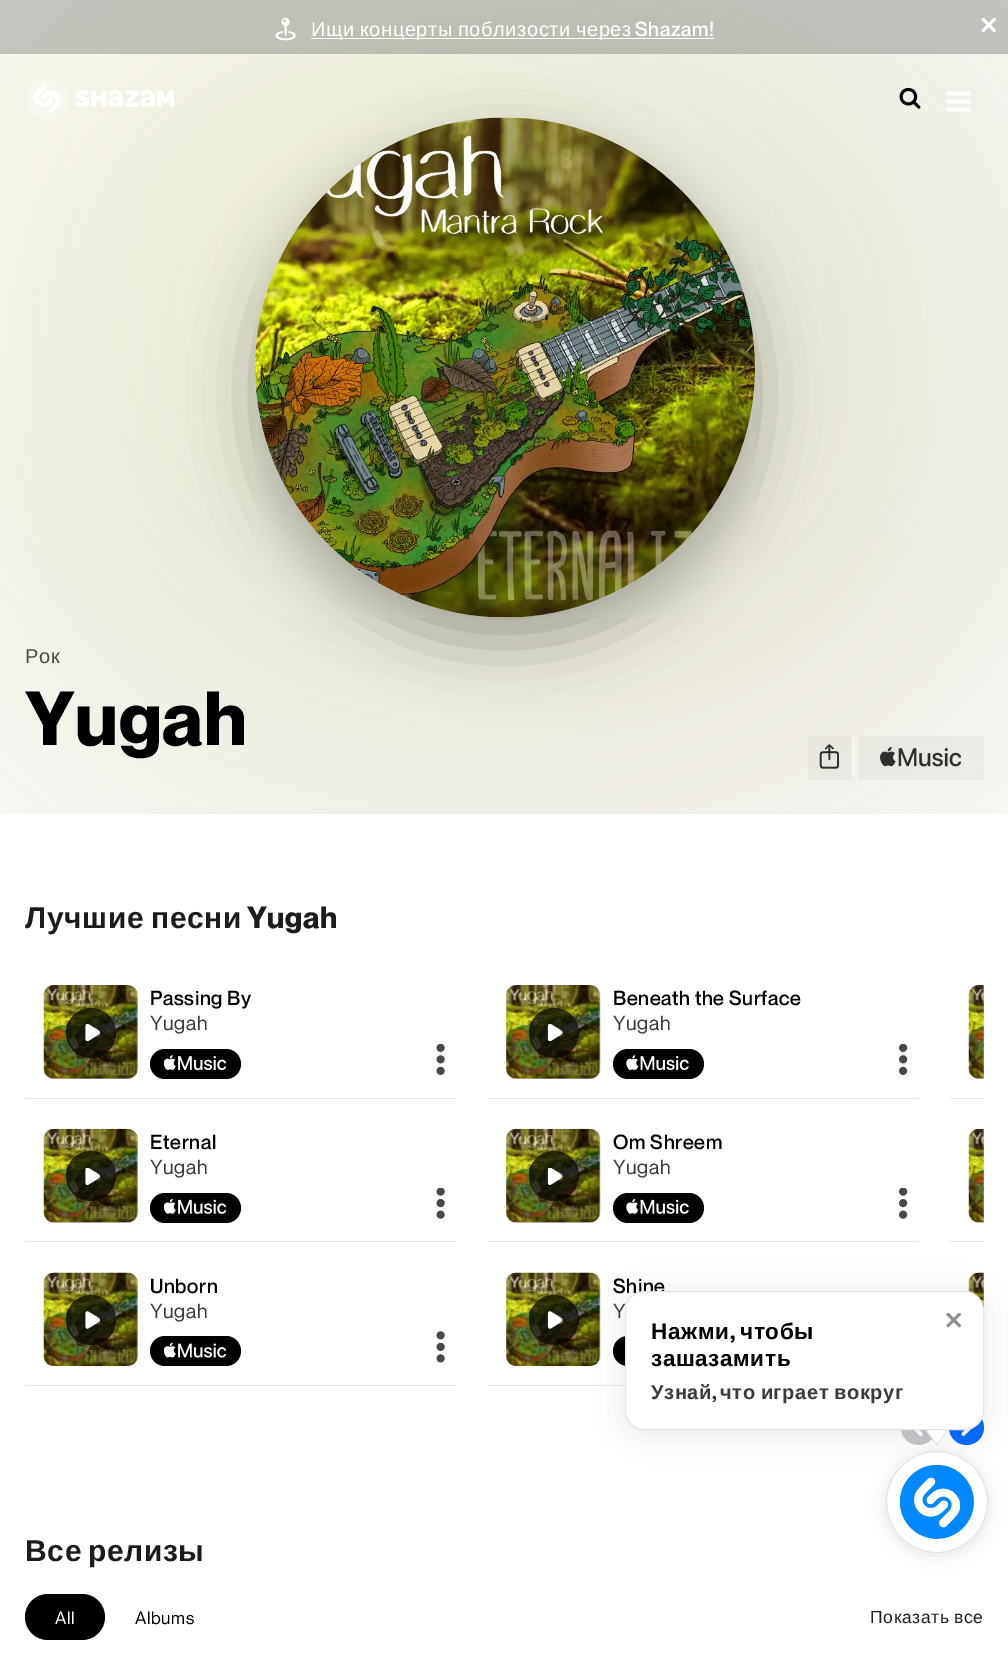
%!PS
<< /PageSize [1008 1673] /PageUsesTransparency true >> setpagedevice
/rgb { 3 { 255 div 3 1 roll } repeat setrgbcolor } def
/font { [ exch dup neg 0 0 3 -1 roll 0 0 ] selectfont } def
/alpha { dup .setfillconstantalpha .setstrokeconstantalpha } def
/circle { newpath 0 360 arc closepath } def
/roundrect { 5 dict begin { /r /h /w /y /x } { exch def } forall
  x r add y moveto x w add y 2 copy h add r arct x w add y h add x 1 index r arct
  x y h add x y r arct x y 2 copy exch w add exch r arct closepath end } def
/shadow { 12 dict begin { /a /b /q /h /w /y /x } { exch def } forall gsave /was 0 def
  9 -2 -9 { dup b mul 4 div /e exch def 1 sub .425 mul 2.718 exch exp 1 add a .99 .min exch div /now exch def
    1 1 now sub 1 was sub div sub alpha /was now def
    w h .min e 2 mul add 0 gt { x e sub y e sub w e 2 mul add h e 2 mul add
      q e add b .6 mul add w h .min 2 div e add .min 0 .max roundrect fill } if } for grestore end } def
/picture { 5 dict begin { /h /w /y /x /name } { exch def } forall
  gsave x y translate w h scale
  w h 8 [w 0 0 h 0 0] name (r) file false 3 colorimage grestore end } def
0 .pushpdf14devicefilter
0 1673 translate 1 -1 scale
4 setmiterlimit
255 255 255 rgb
0 0 1008 1673 rectfill
(img/6.rgb) 0 0 1008 814 picture
0 0 0 rgb
255 143 500 500 250 31 0.3 shadow
0.35 alpha
100 100 100 rgb
0 0 1008 54 rectfill
1 alpha
(img/1.rgb) 275 17 21 24 picture
255 255 255 rgb
311 38 403 1 rectfill
(img/2.rgb) 981 18 15 15 picture
(img/3.rgb) 26 78 148 42 picture
(img/4.rgb) 899 87 22 22 picture
(img/5.rgb) 946 91 25 21 picture
(img/7.rgb) 255 117 500 501 picture
0.04 alpha
0 0 0 rgb
808 736 43 44 rectfill
1 alpha
(img/8.rgb) 819 744 20 25 picture
0.04 alpha
858 736 126 44 rectfill
1 alpha
(img/9.rgb) 880 746 81 21 picture
209 209 214 rgb
44 985 94 94 10 roundrect fill
(img/10.rgb) 43 985 95 94 picture
0.7 alpha
0 0 0 rgb
91 1033 25 circle fill
1 alpha
(img/11.rgb) 85 1024 15 17 picture
150 1049 91 30 15 roundrect fill
(img/12.rgb) 164 1055 62 16 picture
(img/13.rgb) 436 1044 9 31 picture
230 230 230 rgb
25 1098 431 1 rectfill
209 209 214 rgb
506 985 94 94 10 roundrect fill
(img/14.rgb) 506 985 95 94 picture
0.7 alpha
0 0 0 rgb
554 1033 25 circle fill
1 alpha
(img/15.rgb) 547 1024 16 17 picture
613 1049 91 30 15 roundrect fill
(img/16.rgb) 626 1055 63 16 picture
(img/17.rgb) 899 1044 9 31 picture
230 230 230 rgb
488 1098 431 1 rectfill
209 209 214 rgb
979 985 moveto 984 985 lineto 984 1079 lineto 979 1079 lineto 973.5 1079 969 1074.5 969 1069 curveto 969 995 lineto 969 989.5 973.5 985 979 985 curveto closepath fill
(img/18.rgb) 968 985 16 94 picture
230 230 230 rgb
950 1098 34 1 rectfill
209 209 214 rgb
44 1129 94 94 10 roundrect fill
(img/19.rgb) 43 1128 95 95 picture
0.7 alpha
0 0 0 rgb
91 1176 25 circle fill
1 alpha
(img/20.rgb) 85 1168 15 17 picture
150 1193 91 30 15 roundrect fill
(img/21.rgb) 164 1198 62 16 picture
(img/22.rgb) 436 1188 9 31 picture
230 230 230 rgb
25 1241 431 1 rectfill
209 209 214 rgb
506 1129 94 94 10 roundrect fill
(img/23.rgb) 506 1128 95 95 picture
0.7 alpha
0 0 0 rgb
554 1176 25 circle fill
1 alpha
(img/24.rgb) 547 1168 16 17 picture
613 1193 91 30 15 roundrect fill
(img/25.rgb) 626 1198 63 16 picture
(img/26.rgb) 899 1188 9 31 picture
230 230 230 rgb
488 1241 431 1 rectfill
209 209 214 rgb
979 1129 moveto 984 1129 lineto 984 1223 lineto 979 1223 lineto 973.5 1223 969 1218.5 969 1213 curveto 969 1139 lineto 969 1133.5 973.5 1129 979 1129 curveto closepath fill
(img/27.rgb) 968 1128 16 95 picture
230 230 230 rgb
950 1241 34 1 rectfill
209 209 214 rgb
44 1273 94 93 10 roundrect fill
(img/28.rgb) 43 1272 95 95 picture
0.7 alpha
0 0 0 rgb
91 1320 25 circle fill
1 alpha
(img/29.rgb) 85 1311 15 18 picture
150 1336 91 30 15 roundrect fill
(img/30.rgb) 164 1342 62 16 picture
(img/31.rgb) 436 1331 9 32 picture
230 230 230 rgb
25 1385 431 1 rectfill
209 209 214 rgb
506 1273 94 93 10 roundrect fill
(img/32.rgb) 506 1272 95 95 picture
0.7 alpha
0 0 0 rgb
554 1320 25 circle fill
1 alpha
(img/33.rgb) 547 1311 16 18 picture
613 1336 91 30 15 roundrect fill
230 230 230 rgb
488 1385 137 1 rectfill
(img/34.rgb) 968 1272 16 38 picture
199 199 204 rgb
918.5 1427.5 17.5 circle fill
(img/35.rgb) 914 1430 9 6 picture
6 107 255 rgb
966.5 1427.5 17.5 circle fill
(img/36.rgb) 961 1428 11 8 picture
0 0 0 rgb
25 1594 80 46 23 roundrect fill
625 1294 359 139 19 15 0.08 shadow
gsave
926 1431 22 18 rectclip
228 228 228 rgb
3.8 setlinewidth
927.5 1430 moveto 946 1430 lineto 937 1442.5 lineto closepath stroke
grestore
255 255 255 rgb
927.5 1430 moveto 946 1430 lineto 937 1442.5 lineto closepath fill
gsave
926 1430 22 19 rectclip
1.2 setlinewidth
927.5 1430 moveto 946 1430 lineto 937 1442.5 lineto closepath stroke
grestore
/LiberationSans-Regular 20 font
311 36 moveto -1 0 32 0.6 0 (Ищи концерты поблизости через) awidthshow
/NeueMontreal-Medium 20 font
635 36 moveto 0.6 0 (Shazam!) ashow
/LiberationSans-Regular 20 font
73 73 70 rgb
25 663 moveto 0.6 0 (Рок) ashow
/NeueMontreal-Bold 75 font
0 0 0 rgb
25 745 moveto 0.6 0 (Yugah) ashow
/LiberationSans-Bold 30 font
28 28 30 rgb
25 928 moveto -2 0 32 0.6 0 (Лучшие песни) awidthshow
/NeueMontreal-Bold 30 font
247 928 moveto 0.6 0 (Yugah) ashow
/NeueMontreal-Medium 20 font
0 0 0 rgb
150 1005 moveto 0.6 0 (Passing By) ashow
/NeueMontreal-Regular 20 font
58 58 60 rgb
150 1030 moveto 0.6 0 (Yugah) ashow
/NeueMontreal-Medium 20 font
0 0 0 rgb
613 1005 moveto 0.6 0 (Beneath the Surface) ashow
/NeueMontreal-Regular 20 font
58 58 60 rgb
613 1030 moveto 0.6 0 (Yugah) ashow
/NeueMontreal-Medium 20 font
0 0 0 rgb
150 1149 moveto 0.6 0 (Eternal) ashow
/NeueMontreal-Regular 20 font
58 58 60 rgb
150 1174 moveto 0.6 0 (Yugah) ashow
/NeueMontreal-Medium 20 font
0 0 0 rgb
613 1149 moveto 0.6 0 (Om Shreem) ashow
/NeueMontreal-Regular 20 font
58 58 60 rgb
613 1174 moveto 0.6 0 (Yugah) ashow
/NeueMontreal-Medium 20 font
0 0 0 rgb
150 1293 moveto 0.6 0 (Unborn) ashow
/NeueMontreal-Regular 20 font
58 58 60 rgb
150 1318 moveto 0.6 0 (Yugah) ashow
/NeueMontreal-Medium 20 font
0 0 0 rgb
613 1293 moveto 0.6 0 (Shine) ashow
/NeueMontreal-Regular 20 font
58 58 60 rgb
613 1318 moveto 0.6 0 (Y) ashow
/LiberationSans-Bold 30 font
28 28 30 rgb
25 1561 moveto -3 0 32 0.6 0 (Все релизы) awidthshow
/NeueMontreal-Regular 17.5 font
255 255 255 rgb
55 1624 moveto 0.6 0 (All) ashow
0 0 0 rgb
135 1624 moveto 0.6 0 (Albums) ashow
/LiberationSans-Regular 17.5 font
28 28 30 rgb
870 1623 moveto -1 0 32 0.6 0 (Показать все) awidthshow
255 255 255 rgb
625.5 1291.5 358 138 18.5 roundrect gsave fill grestore
228 228 228 rgb
stroke
(img/37.rgb) 946 1313 15 15 picture
/LiberationSans-Bold 22.5 font
0 0 0 rgb
651 1339 moveto 0.6 0 (Нажми) ashow
/NeueMontreal-Bold 22.5 font
730 1339 moveto 0.6 0 (,) ashow
/LiberationSans-Bold 22.5 font
740 1339 moveto 0.6 0 (чтобы) ashow
651 1366 moveto 0.6 0 (зашазамить) ashow
/LiberationSans-Bold 20 font
58 58 60 rgb
651 1399 moveto 0.6 0 (Узнай) ashow
/NeueMontreal-Bold 20 font
712 1399 moveto 0.6 0 (,) ashow
/LiberationSans-Bold 20 font
720 1399 moveto -1 0 32 0.6 0 (что играет вокруг) awidthshow
0 0 0 rgb
886 1454 102 101 50.5 8 0.1 shadow
255 255 255 rgb
937 1502 50.5 circle gsave fill grestore
228 228 228 rgb
stroke
(img/38.rgb) 900 1465 74 74 picture
.poppdf14devicefilter showpage
